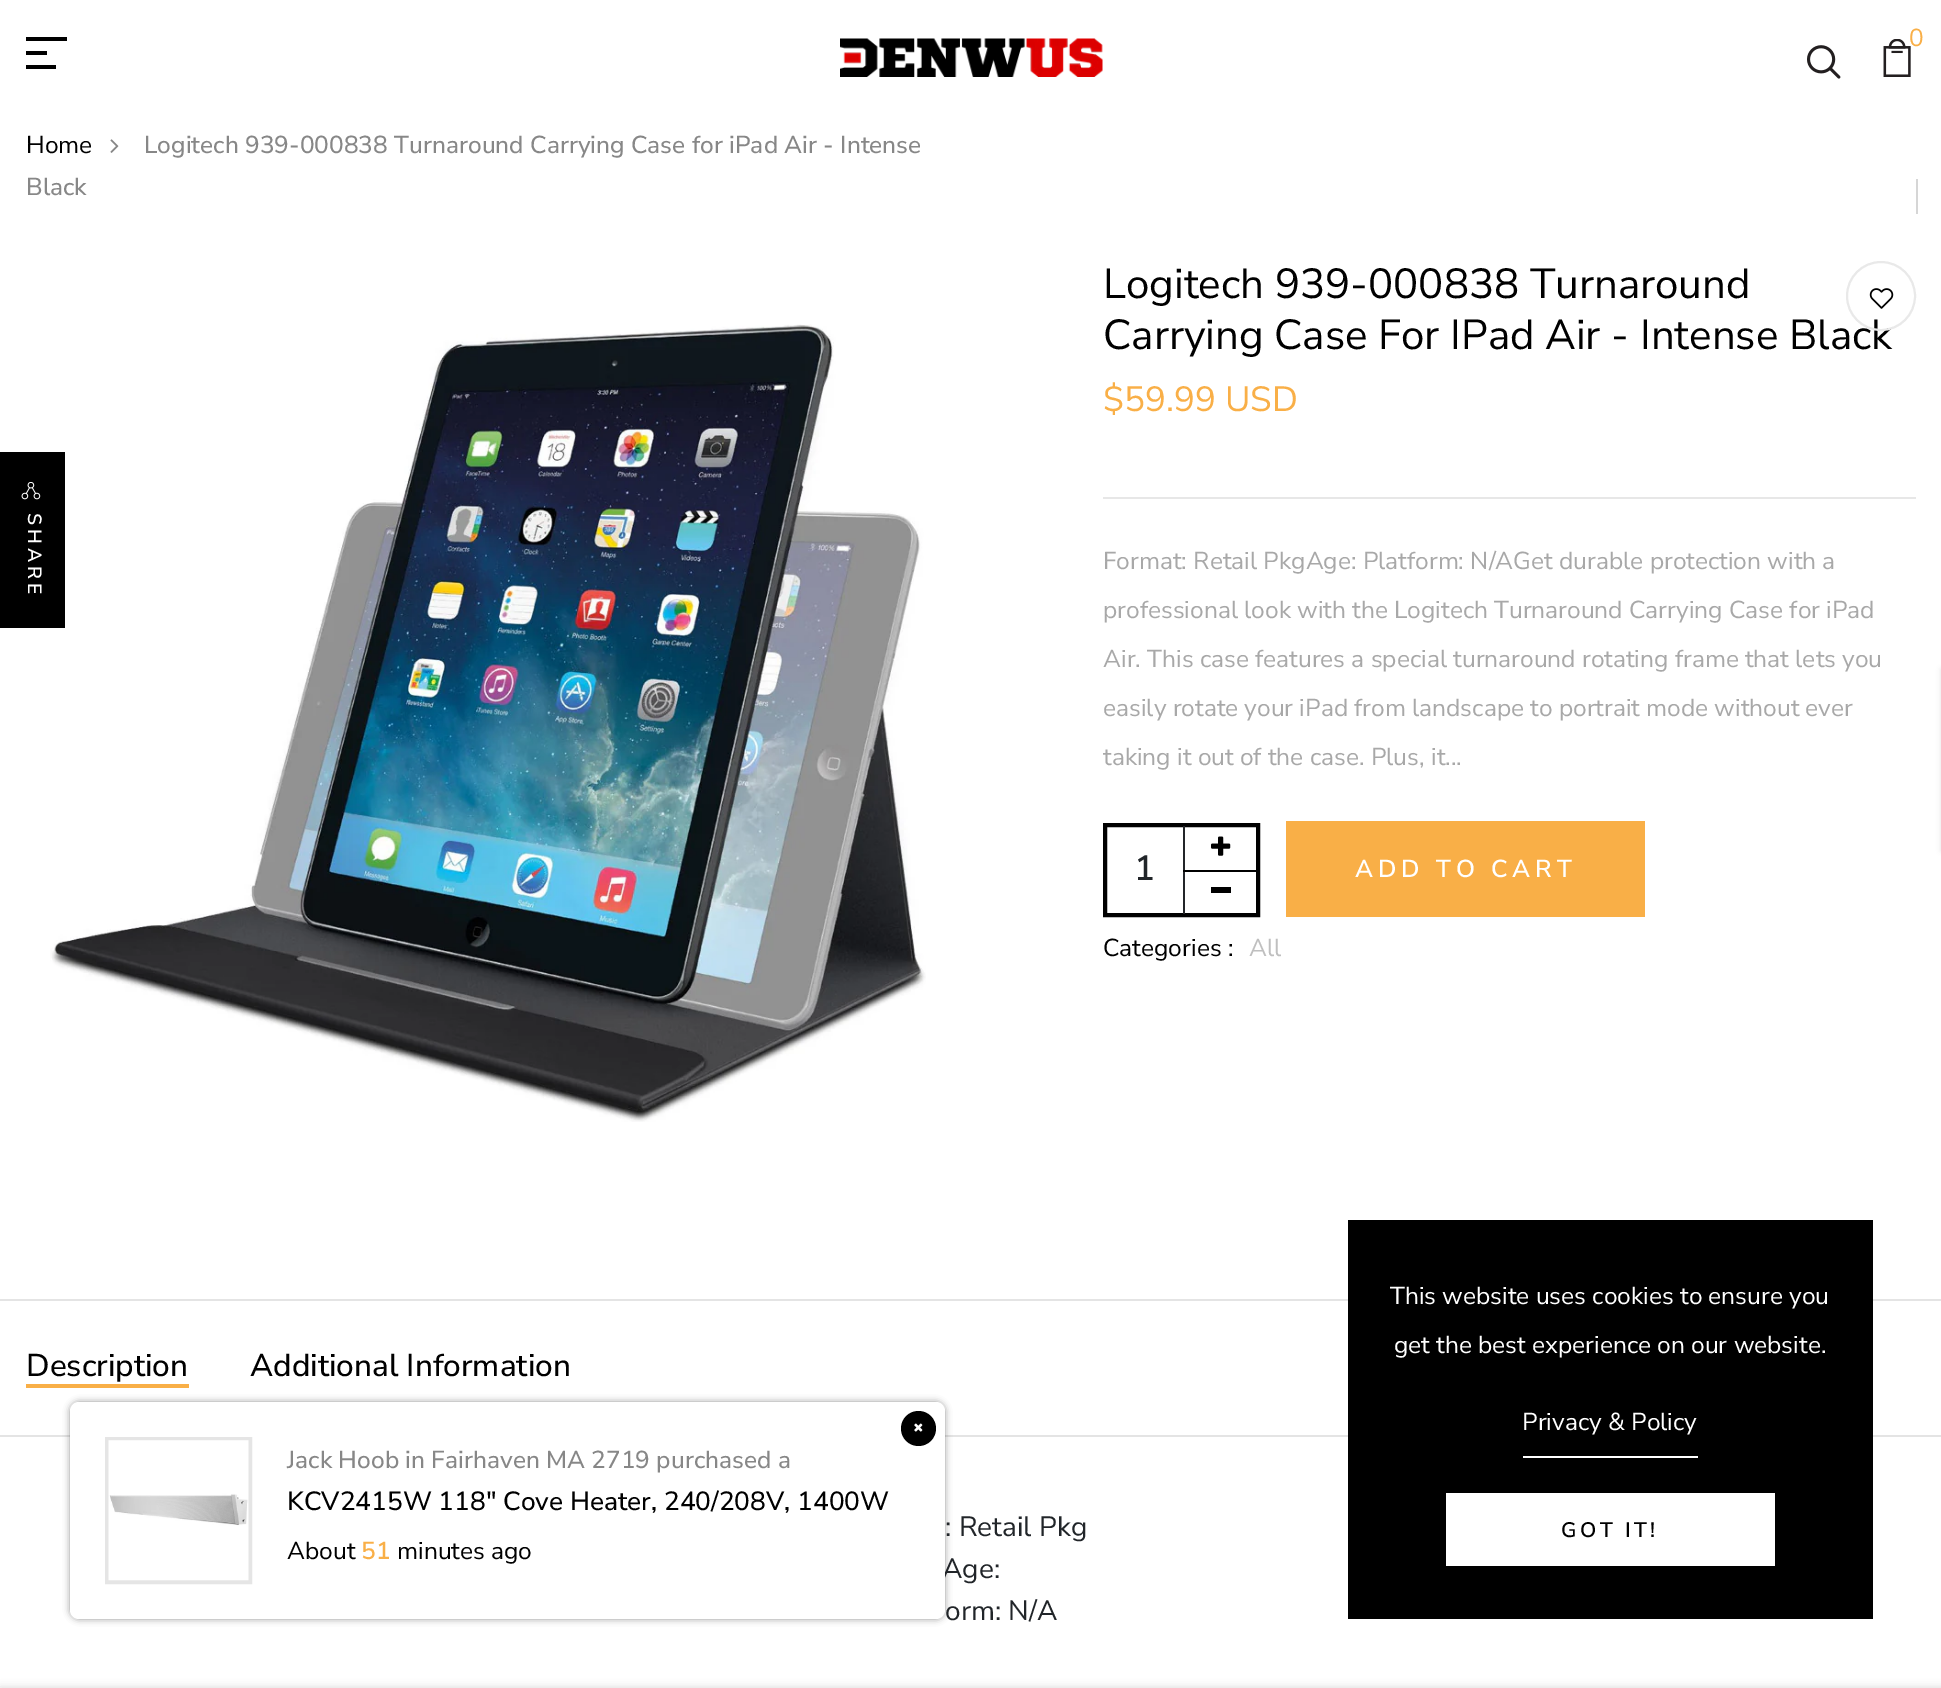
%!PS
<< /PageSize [1941 1688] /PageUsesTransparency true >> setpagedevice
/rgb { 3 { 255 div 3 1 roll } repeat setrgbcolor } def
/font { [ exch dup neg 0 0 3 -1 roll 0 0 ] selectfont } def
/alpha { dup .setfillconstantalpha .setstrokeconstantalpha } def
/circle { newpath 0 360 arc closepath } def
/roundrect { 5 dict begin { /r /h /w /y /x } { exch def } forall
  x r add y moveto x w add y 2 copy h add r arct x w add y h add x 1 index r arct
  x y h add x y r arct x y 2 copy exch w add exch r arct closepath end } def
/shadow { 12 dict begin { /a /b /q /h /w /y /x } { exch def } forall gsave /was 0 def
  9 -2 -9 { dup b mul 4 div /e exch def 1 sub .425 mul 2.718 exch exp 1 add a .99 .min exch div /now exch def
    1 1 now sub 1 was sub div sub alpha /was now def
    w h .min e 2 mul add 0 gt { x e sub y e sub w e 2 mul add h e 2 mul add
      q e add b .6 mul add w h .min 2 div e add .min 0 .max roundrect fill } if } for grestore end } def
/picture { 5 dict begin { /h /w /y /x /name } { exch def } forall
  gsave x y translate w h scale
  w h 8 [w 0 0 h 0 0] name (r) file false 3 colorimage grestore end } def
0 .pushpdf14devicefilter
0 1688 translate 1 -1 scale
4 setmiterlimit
255 255 255 rgb
0 0 1941 1688 rectfill
[
  [26 37 41 4 0 0 0]
  [26 51 21 4 0 0 0]
  [26 65 30 4 0 0 0]
] { aload pop rgb rectfill } forall
(img/1.rgb) 840 38 263 39 picture
(img/2.rgb) 1883 39 28 38 picture
(img/3.rgb) 1807 45 34 34 picture
(img/4.rgb) 110 139 9 14 picture
214 214 214 rgb
1916 179 2 35 rectfill
(img/5.rgb) 50 324 876 798 picture
231 231 231 rgb
1103 497 813 2 rectfill
0 0 0 rgb
4 setlinewidth
1105 825 153 90 rectstroke
(img/7.rgb) 1211 836 20 20 picture
[
  [1183 826 2 88 35 37 41]
  [1183 870 74 2 0 0 0]
  [1211 887 20 6 0 0 0]
  [1286 821 359 96 249 175 71]
] { aload pop rgb rectfill } forall
0 0 0 rgb
0 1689 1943 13 0 4.5 0.2 shadow
0 452 65 176 rectfill
(img/8.rgb) 21 482 20 18 picture
[
  [0 1299 1941 2 228 228 228]
  [0 1435 1941 2 228 228 228]
  [26 1384 163 4 249 175 71]
] { aload pop rgb rectfill } forall
0 0 0 rgb
1941 669 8 182 0 2.5 0.1 shadow
70 1402 875 217 9 3.5 0.4 shadow
[
  [1348 1220 525 399 0 0 0]
  [1523 1456 175 2 255 255 255]
  [1446 1493 329 73 255 255 255]
] { aload pop rgb rectfill } forall
/NunitoSans-Regular 24.5 font
249 175 71 rgb
1909 46 moveto (0) show
0 0 0 rgb
26 153 moveto (Home) show
/NunitoSans-Medium 24.5 font
135 135 135 rgb
144 153 moveto (Logitech 939-000838 Turnaround Carrying Case for iPad Air - Intense) show
26 195 moveto (Black) show
/NunitoSans-Regular 42 font
0 0 0 rgb
1103 298 moveto (Logitech 939-000838 Turnaround) show
1103 349 moveto (Carrying Case For IPad Air - Intense Black) show
233 233 233 rgb
2 setlinewidth
1881 296 34 circle stroke
(img/6.rgb) 1869 288 25 21 picture
/NunitoSans-Regular 35 font
249 175 71 rgb
1103 411 moveto ($59.99 USD) show
/NunitoSans-Regular 24.5 font
168 168 168 rgb
[
  [(Format: Retail PkgAge: Platform: N/AGet durable protection with a) 1103 569]
  [(professional look with the Logitech Turnaround Carrying Case for iPad) 1103 618]
  [(Air. This case features a special turnaround rotating frame that lets you) 1103 667]
  [(easily rotate your iPad from landscape to portrait mode without ever) 1103 716]
  [(taking it out of the case. Plus, it...) 1103 765]
] { aload pop moveto show } forall
/NunitoSans-SemiBold 35 font
33 37 41 rgb
1134 880 moveto (1) show
/NunitoSans-SemiBold 24.5 font
255 255 255 rgb
1355 877 moveto 4.9 0 (ADD TO CART) ashow
/NunitoSans-Regular 24.5 font
0 0 0 rgb
1103 956 moveto (Categories :) show
191 191 191 rgb
1249 956 moveto (All) show
/NunitoSans-SemiBold 19.25 font
255 255 255 rgb
gsave 28 513 translate 90 rotate 0 0 moveto 4 0 (SHARE) ashow grestore
/NunitoSans-Medium 31.5 font
0 0 0 rgb
26 1376 moveto (Description) show
250 1376 moveto (Additional Information) show
/NunitoSans-Regular 28 font
33 37 41 rgb
[
  [(: Retail Pkg) 945 1536]
  [(Age:) 942 1578]
  [(orm: N/A) 945 1620]
] { aload pop moveto show } forall
255 255 255 rgb
70 1402 875 217 9 roundrect fill
0 0 0 rgb
918.5 1428.5 17.5 circle fill
(img/9.rgb) 914 1423 9 9 picture
229 229 229 rgb
4 setlinewidth
107 1439 143 143 rectstroke
(img/10.rgb) 108 1440 141 141 picture
/NunitoSans-Medium 24.5 font
135 135 135 rgb
287 1468 moveto (Jack Hoob in Fairhaven MA 2719 purchased a) show
/NunitoSans-Medium 26.25 font
0 0 0 rgb
287 1510 moveto (KCV2415W 118" Cove Heater, 240/208V, 1400W) show
/NunitoSans-Regular 24.5 font
287 1559 moveto (About) show
/NunitoSans-SemiBold 24.5 font
249 175 71 rgb
361 1559 moveto (51) show
/NunitoSans-Regular 24.5 font
0 0 0 rgb
397 1559 moveto (minutes ago) show
255 255 255 rgb
[
  [(This website uses cookies to ensure you) 1390 1304]
  [(get the best experience on our website.) 1394 1353]
  [(Privacy & Policy) 1522 1430]
] { aload pop moveto show } forall
/NunitoSans-SemiBold 21 font
0 0 0 rgb
1561 1537 moveto 3.5 0 (GOT IT!) ashow
.poppdf14devicefilter showpage
